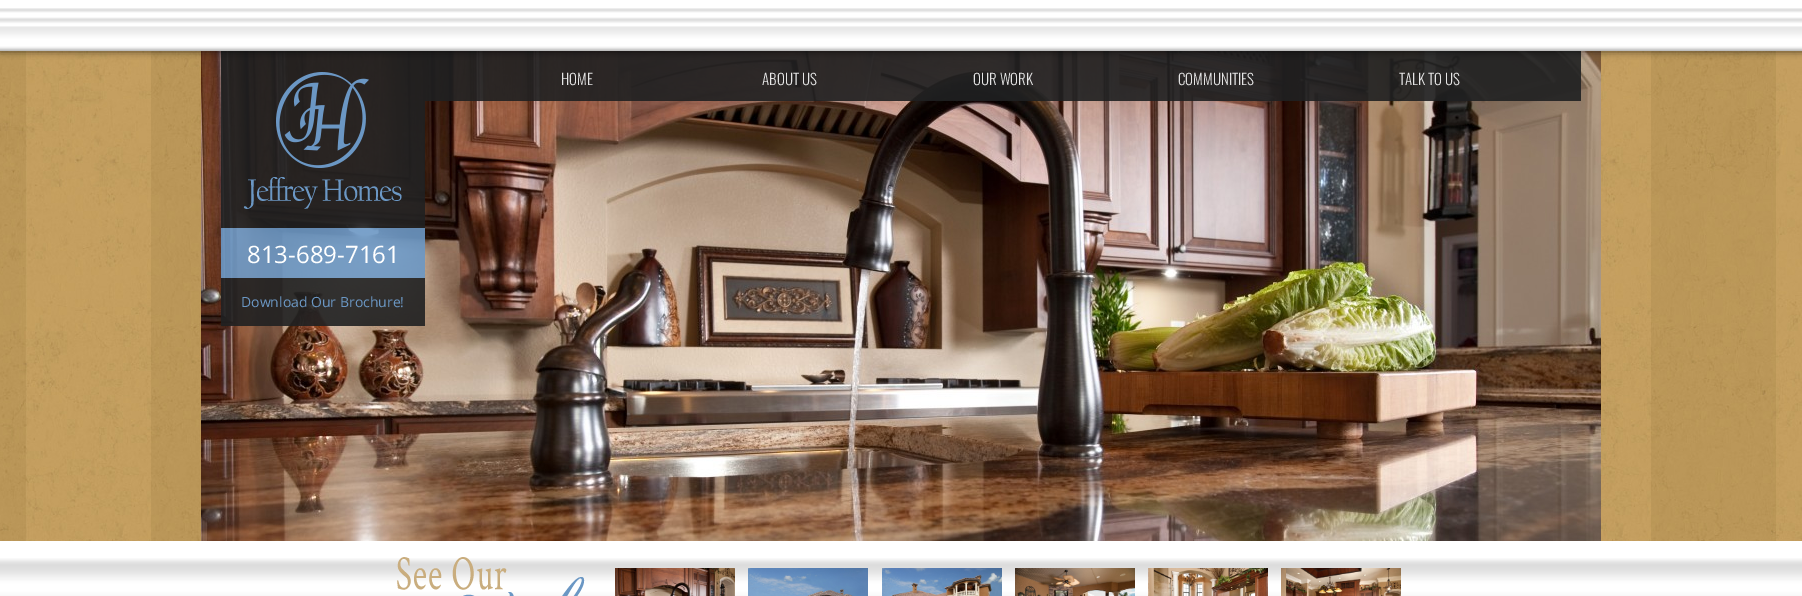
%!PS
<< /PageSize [1802 596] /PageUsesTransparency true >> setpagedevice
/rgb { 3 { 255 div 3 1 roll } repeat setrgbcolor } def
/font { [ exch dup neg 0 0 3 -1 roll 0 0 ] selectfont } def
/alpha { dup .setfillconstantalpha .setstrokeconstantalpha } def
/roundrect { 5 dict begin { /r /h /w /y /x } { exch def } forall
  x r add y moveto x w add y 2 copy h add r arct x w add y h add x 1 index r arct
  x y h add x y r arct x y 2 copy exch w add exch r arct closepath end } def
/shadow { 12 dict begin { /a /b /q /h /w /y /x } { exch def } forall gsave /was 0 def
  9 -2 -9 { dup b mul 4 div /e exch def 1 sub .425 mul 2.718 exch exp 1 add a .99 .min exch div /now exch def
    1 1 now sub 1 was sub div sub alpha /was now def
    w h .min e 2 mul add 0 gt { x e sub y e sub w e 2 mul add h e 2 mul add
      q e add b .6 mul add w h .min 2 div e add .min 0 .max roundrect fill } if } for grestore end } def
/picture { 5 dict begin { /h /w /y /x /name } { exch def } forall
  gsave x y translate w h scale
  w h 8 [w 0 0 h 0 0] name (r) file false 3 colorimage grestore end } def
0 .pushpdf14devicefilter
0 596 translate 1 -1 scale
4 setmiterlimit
255 255 255 rgb
0 0 1802 596 rectfill
(img/1.rgb) 0 51 1802 490 picture
(img/2.rgb) 201 51 1400 490 picture
(img/12.rgb) 0 558 1802 38 picture
(img/3.rgb) 397 557 188 39 picture
(img/4.rgb) 615 568 120 28 picture
(img/5.rgb) 748 568 120 28 picture
(img/6.rgb) 882 568 120 28 picture
(img/7.rgb) 1015 568 120 28 picture
(img/8.rgb) 1148 568 120 28 picture
(img/9.rgb) 1281 568 120 28 picture
0.9 alpha
31 32 33 rgb
425 51 1156 50 rectfill
221 51 204 177 rectfill
1 alpha
0 0 0 rgb
0 -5 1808 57 0 3.5 0.5 shadow
255 255 255 rgb
0 0 1802 8 rectfill
(img/10.rgb) 0 8 1802 43 picture
(img/11.rgb) 243 72 159 137 picture
0.9 alpha
107 151 196 rgb
221 228 204 50 rectfill
31 32 33 rgb
221 278 204 48 rectfill
/Oswald-Light 15 font
1 alpha
230 230 230 rgb
[
  [(HOME) 561 85]
  [(ABOUT US) 762 85]
  [(OUR WORK) 973 85]
  [(COMMUNITIES) 1178 85]
  [(TALK TO US) 1399 85]
] { aload pop moveto show } forall
/OpenSans-Regular 24 font
255 255 255 rgb
247 263 moveto (813-689-7161) show
/OpenSans-Regular 14 font
107 151 196 rgb
241 307 moveto (Download Our Brochure!) show
.poppdf14devicefilter showpage
